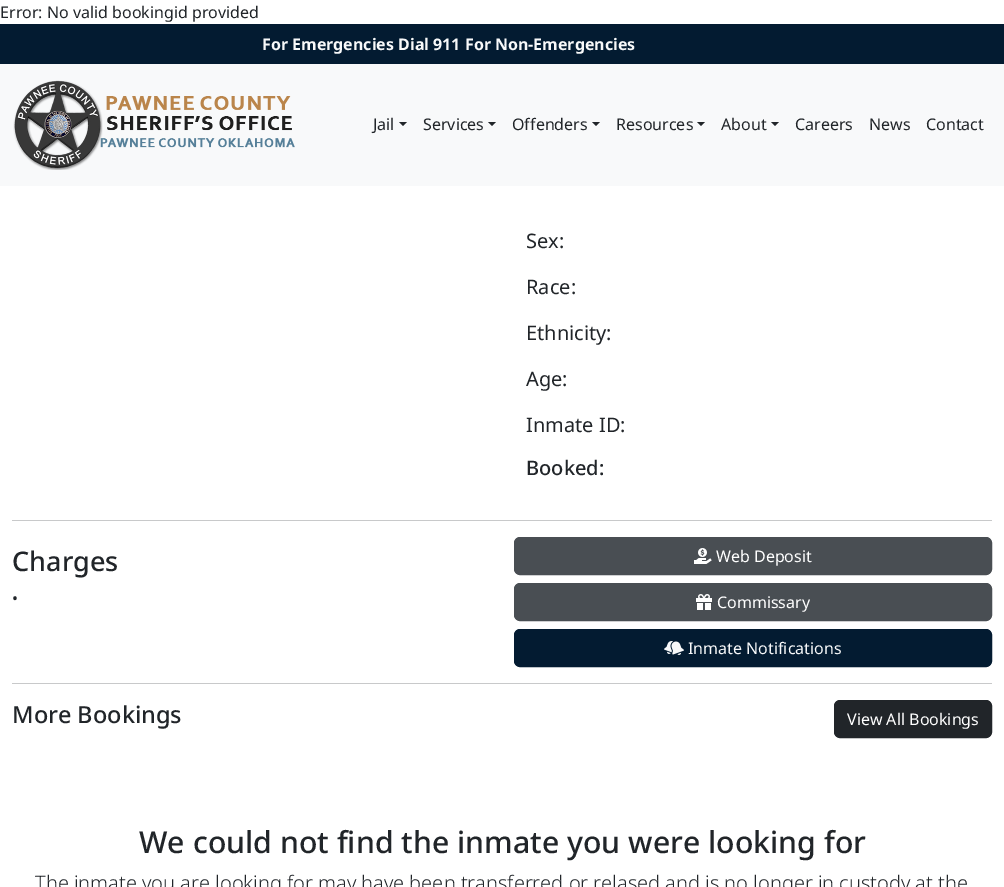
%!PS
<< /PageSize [1004 887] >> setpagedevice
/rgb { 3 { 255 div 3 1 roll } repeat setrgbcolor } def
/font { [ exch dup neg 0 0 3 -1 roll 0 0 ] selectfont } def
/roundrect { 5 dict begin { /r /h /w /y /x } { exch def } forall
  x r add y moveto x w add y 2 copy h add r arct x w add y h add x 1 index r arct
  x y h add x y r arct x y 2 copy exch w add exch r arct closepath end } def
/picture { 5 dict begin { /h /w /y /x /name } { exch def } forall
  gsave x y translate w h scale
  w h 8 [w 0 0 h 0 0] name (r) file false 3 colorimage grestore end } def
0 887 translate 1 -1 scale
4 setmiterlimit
255 255 255 rgb
0 0 1004 887 rectfill
3 27 49 rgb
0 24 1004 40 rectfill
248 249 250 rgb
0 64 1004 122 rectfill
(img/1.rgb) 13 80 282 90 picture
33 37 41 rgb
399 122 moveto 407 122 lineto 403 126 lineto closepath fill
488 122 moveto 496 122 lineto 492 126 lineto closepath fill
592 122 moveto 600 122 lineto 596 126 lineto closepath fill
697 122 moveto 705 122 lineto 701 126 lineto closepath fill
771 122 moveto 779 122 lineto 775 126 lineto closepath fill
200 201 202 rgb
12 520 980 1 rectfill
73 78 83 rgb
514.5 537.5 477 37 5.5 roundrect gsave fill grestore
stroke
(img/2.rgb) 694 548 18 16 picture
514.5 583.5 477 37 5.5 roundrect gsave fill grestore
stroke
(img/3.rgb) 696 594 16 16 picture
3 27 49 rgb
514.5 629.5 477 37 5.5 roundrect gsave fill grestore
stroke
(img/4.rgb) 664 641 20 14 picture
200 201 202 rgb
12 683 980 1 rectfill
33 37 41 rgb
834.5 700.5 157 37 5.5 roundrect gsave fill grestore
stroke
/NotoSans-Regular 16 font
0 18 moveto (Error: No valid bookingid provided) show
/NotoSans-Bold 16 font
248 249 250 rgb
262 50 moveto (For Emergencies Dial 911 For Non-Emergencies) show
/NotoSans-Regular 16 font
33 37 41 rgb
[
  [(Jail) 373 130]
  [(Services) 423 130]
  [(Offenders) 512 130]
  [(Resources) 616 130]
  [(About) 721 130]
  [(Careers) 795 130]
  [(News) 869 130]
  [(Contact) 926 130]
] { aload pop moveto show } forall
/NotoSans-Regular 20 font
[
  [(Sex:) 526 248]
  [(Race:) 526 294]
  [(Ethnicity:) 526 340]
  [(Age:) 526 386]
  [(Inmate ID:) 526 432]
] { aload pop moveto show } forall
/NotoSans-Medium 20 font
526 475 moveto (Booked:) show
/NotoSans-Medium 27 font
12 571 moveto (Charges) show
/NotoSans-Regular 16 font
12 604 moveto (•) show
255 255 255 rgb
716 562 moveto (Web Deposit) show
717 608 moveto (Commissary) show
248 249 250 rgb
688 654 moveto (Inmate Notifications) show
/NotoSans-Medium 23.5 font
33 37 41 rgb
12 723 moveto (More Bookings) show
/NotoSans-Regular 16 font
255 255 255 rgb
847 725 moveto (View All Bookings) show
/NotoSans-Medium 30.25 font
33 37 41 rgb
139 853 moveto (We could not find the inmate you were looking for) show
/NotoSans-Light 20 font
35 890 moveto (The inmate you are looking for may have been transferred or relased and is no longer in custody at the) show
showpage
